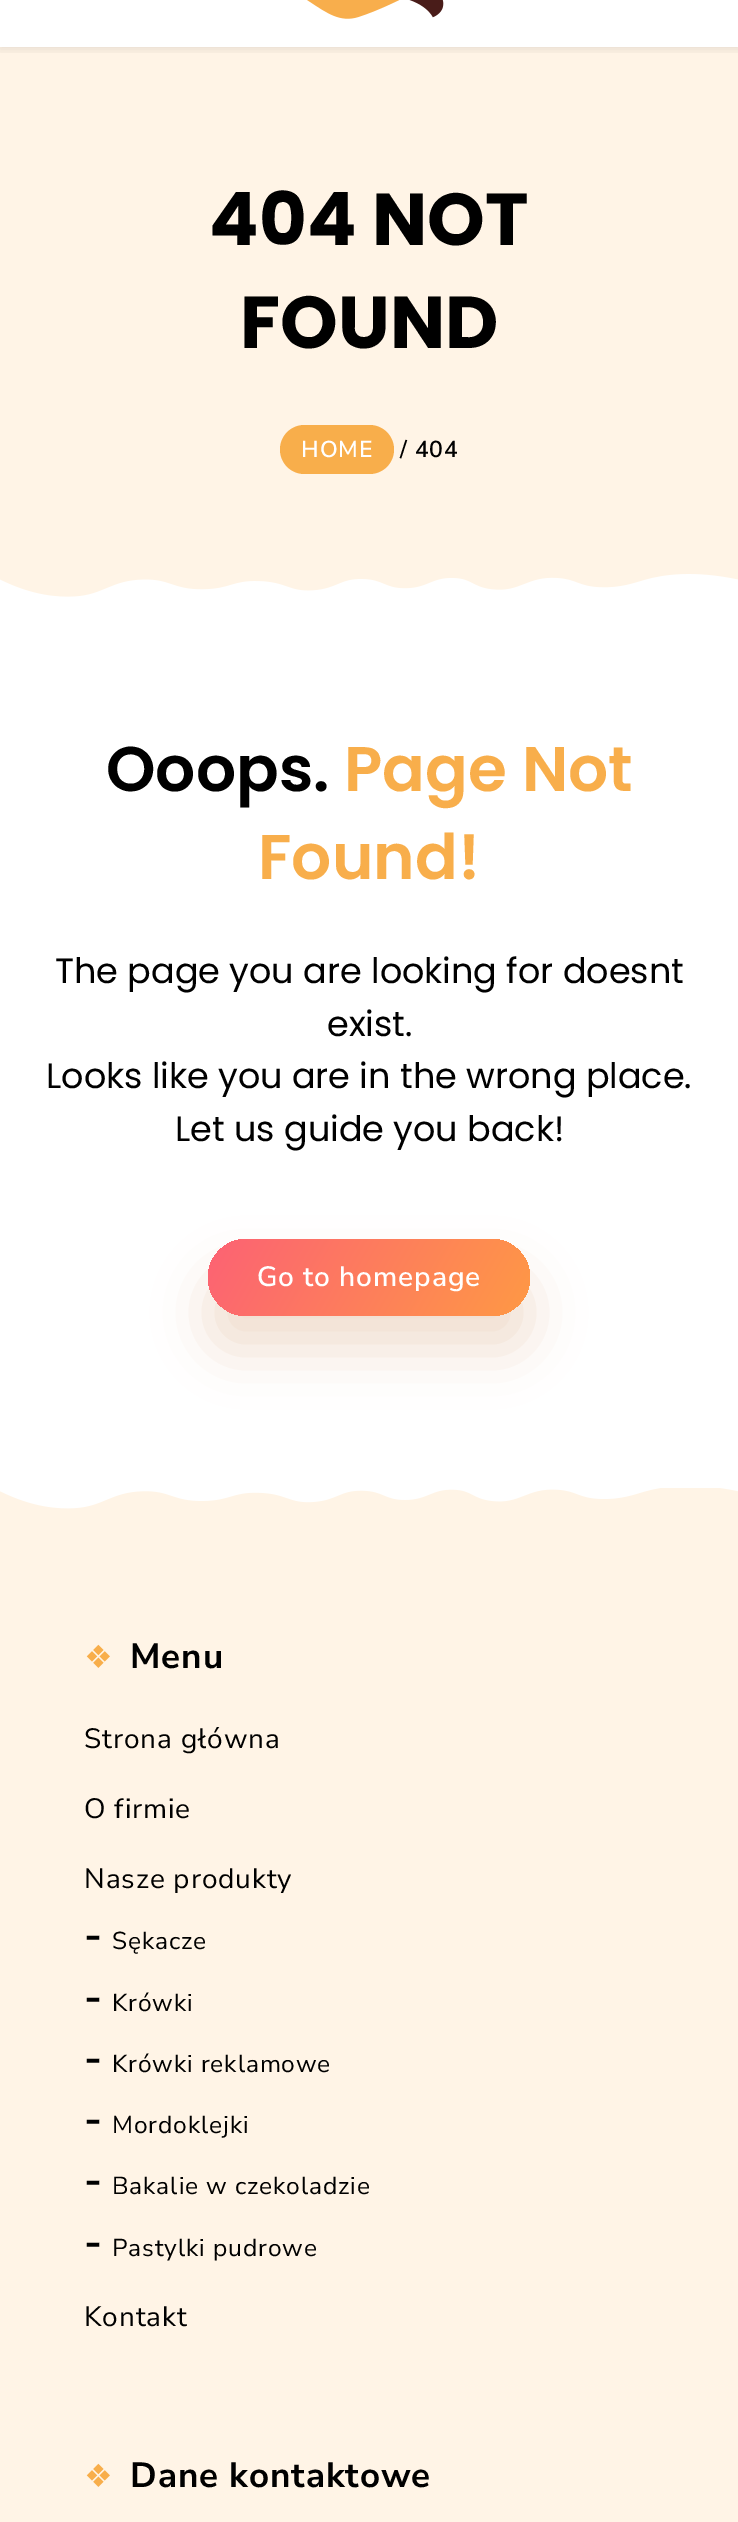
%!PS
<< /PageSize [738 2522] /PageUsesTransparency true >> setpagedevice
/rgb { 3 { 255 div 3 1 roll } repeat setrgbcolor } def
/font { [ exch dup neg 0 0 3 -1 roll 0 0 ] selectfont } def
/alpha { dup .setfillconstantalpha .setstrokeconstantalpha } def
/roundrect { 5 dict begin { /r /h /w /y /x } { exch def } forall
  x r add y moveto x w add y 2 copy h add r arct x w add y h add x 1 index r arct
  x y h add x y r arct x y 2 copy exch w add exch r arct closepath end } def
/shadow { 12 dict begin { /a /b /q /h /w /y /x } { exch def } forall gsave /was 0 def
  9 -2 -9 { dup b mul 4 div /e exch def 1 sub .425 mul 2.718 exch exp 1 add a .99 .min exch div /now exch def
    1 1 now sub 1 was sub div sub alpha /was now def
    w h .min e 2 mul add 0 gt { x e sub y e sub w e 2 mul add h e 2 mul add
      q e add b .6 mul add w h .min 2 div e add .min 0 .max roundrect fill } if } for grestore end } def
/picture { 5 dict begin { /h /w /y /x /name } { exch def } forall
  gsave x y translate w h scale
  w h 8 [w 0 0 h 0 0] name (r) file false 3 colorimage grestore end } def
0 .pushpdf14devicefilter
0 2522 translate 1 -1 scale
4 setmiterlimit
255 255 255 rgb
0 0 738 2522 rectfill
255 244 230 rgb
0 47 738 550 rectfill
gsave
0 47 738 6 rectclip
0 0 0 rgb
0 -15 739 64 0 5 0.1 shadow
grestore
(img/1.rgb) 307 0 137 19 picture
248 174 75 rgb
280 425 114 49 24.5 roundrect fill
(img/2.rgb) 0 574 738 61 picture
223 178 139 rgb
208 1274 322 77 38.5 26 0.4 shadow
gsave 208 1239 322 77 38.5 roundrect clip newpath
<< /ShadingType 2 /ColorSpace /DeviceRGB /Coords [232 1198 507 1357] /Extend [true true] /Function << /FunctionType 2 /Domain [0 1] /C0 [0.988 0.384 0.455] /C1 [1 0.6 0.271] /N 1 >> >> shfill grestore
(img/3.rgb) 0 1488 738 59 picture
255 244 230 rgb
0 1547 738 975 rectfill
/Poppins-Bold 73.5 font
0 0 0 rgb
209 245 moveto (404 NOT) show
240 348 moveto (FOUND) show
/NunitoSans-SemiBold 23 font
255 255 255 rgb
301 457 moveto 0.9 0 (HOME) ashow
0 0 0 rgb
400 457 moveto 0.9 0 (/ 404) ashow
/Poppins-SemiBold 63 font
106 791 moveto (Ooops.) show
248 174 75 rgb
344 791 moveto (Page Not) show
258 879 moveto (Found!) show
/Poppins-Regular 35 font
0 0 0 rgb
[
  [(The page you are looking for doesnt) 55 983]
  [(exist.) 327 1036]
  [(Looks like you are in the wrong place.) 46 1088]
  [(Let us guide you back!) 175 1141]
] { aload pop moveto show } forall
/NunitoSans-SemiBold 28 font
255 255 255 rgb
257 1286 moveto 0.9 0 (Go to homepage) ashow
/DejaVuSans-Regular 32 font
248 174 75 rgb
84 1668 moveto 0.9 0 (❖) ashow
/NunitoSans-Bold 35 font
0 0 0 rgb
130 1668 moveto 0.9 0 (Menu) ashow
/NunitoSans-Regular 28 font
84 1748 moveto 0.9 0 (Strona główna) ashow
84 1818 moveto 0.9 0 (O firmie) ashow
84 1888 moveto 0.9 0 (Nasze produkty) ashow
/NunitoSans-Bold 42 font
84 1949 moveto 0.9 0 (-) ashow
/NunitoSans-Regular 24.5 font
112 1949 moveto 0.9 0 (Sękacze) ashow
/NunitoSans-Bold 42 font
84 2011 moveto 0.9 0 (-) ashow
/NunitoSans-Regular 24.5 font
112 2011 moveto 0.9 0 (Krówki) ashow
/NunitoSans-Bold 42 font
84 2072 moveto 0.9 0 (-) ashow
/NunitoSans-Regular 24.5 font
112 2072 moveto 0.9 0 (Krówki reklamowe) ashow
/NunitoSans-Bold 42 font
84 2133 moveto 0.9 0 (-) ashow
/NunitoSans-Regular 24.5 font
112 2133 moveto 0.9 0 (Mordoklejki) ashow
/NunitoSans-Bold 42 font
84 2194 moveto 0.9 0 (-) ashow
/NunitoSans-Regular 24.5 font
112 2194 moveto 0.9 0 (Bakalie w czekoladzie) ashow
/NunitoSans-Bold 42 font
84 2256 moveto 0.9 0 (-) ashow
/NunitoSans-Regular 24.5 font
112 2256 moveto 0.9 0 (Pastylki pudrowe) ashow
/NunitoSans-Regular 28 font
84 2326 moveto 0.9 0 (Kontakt) ashow
/DejaVuSans-Regular 32 font
248 174 75 rgb
84 2487 moveto 0.9 0 (❖) ashow
/NunitoSans-Bold 35 font
0 0 0 rgb
130 2487 moveto 0.9 0 (Dane kontaktowe) ashow
.poppdf14devicefilter showpage
